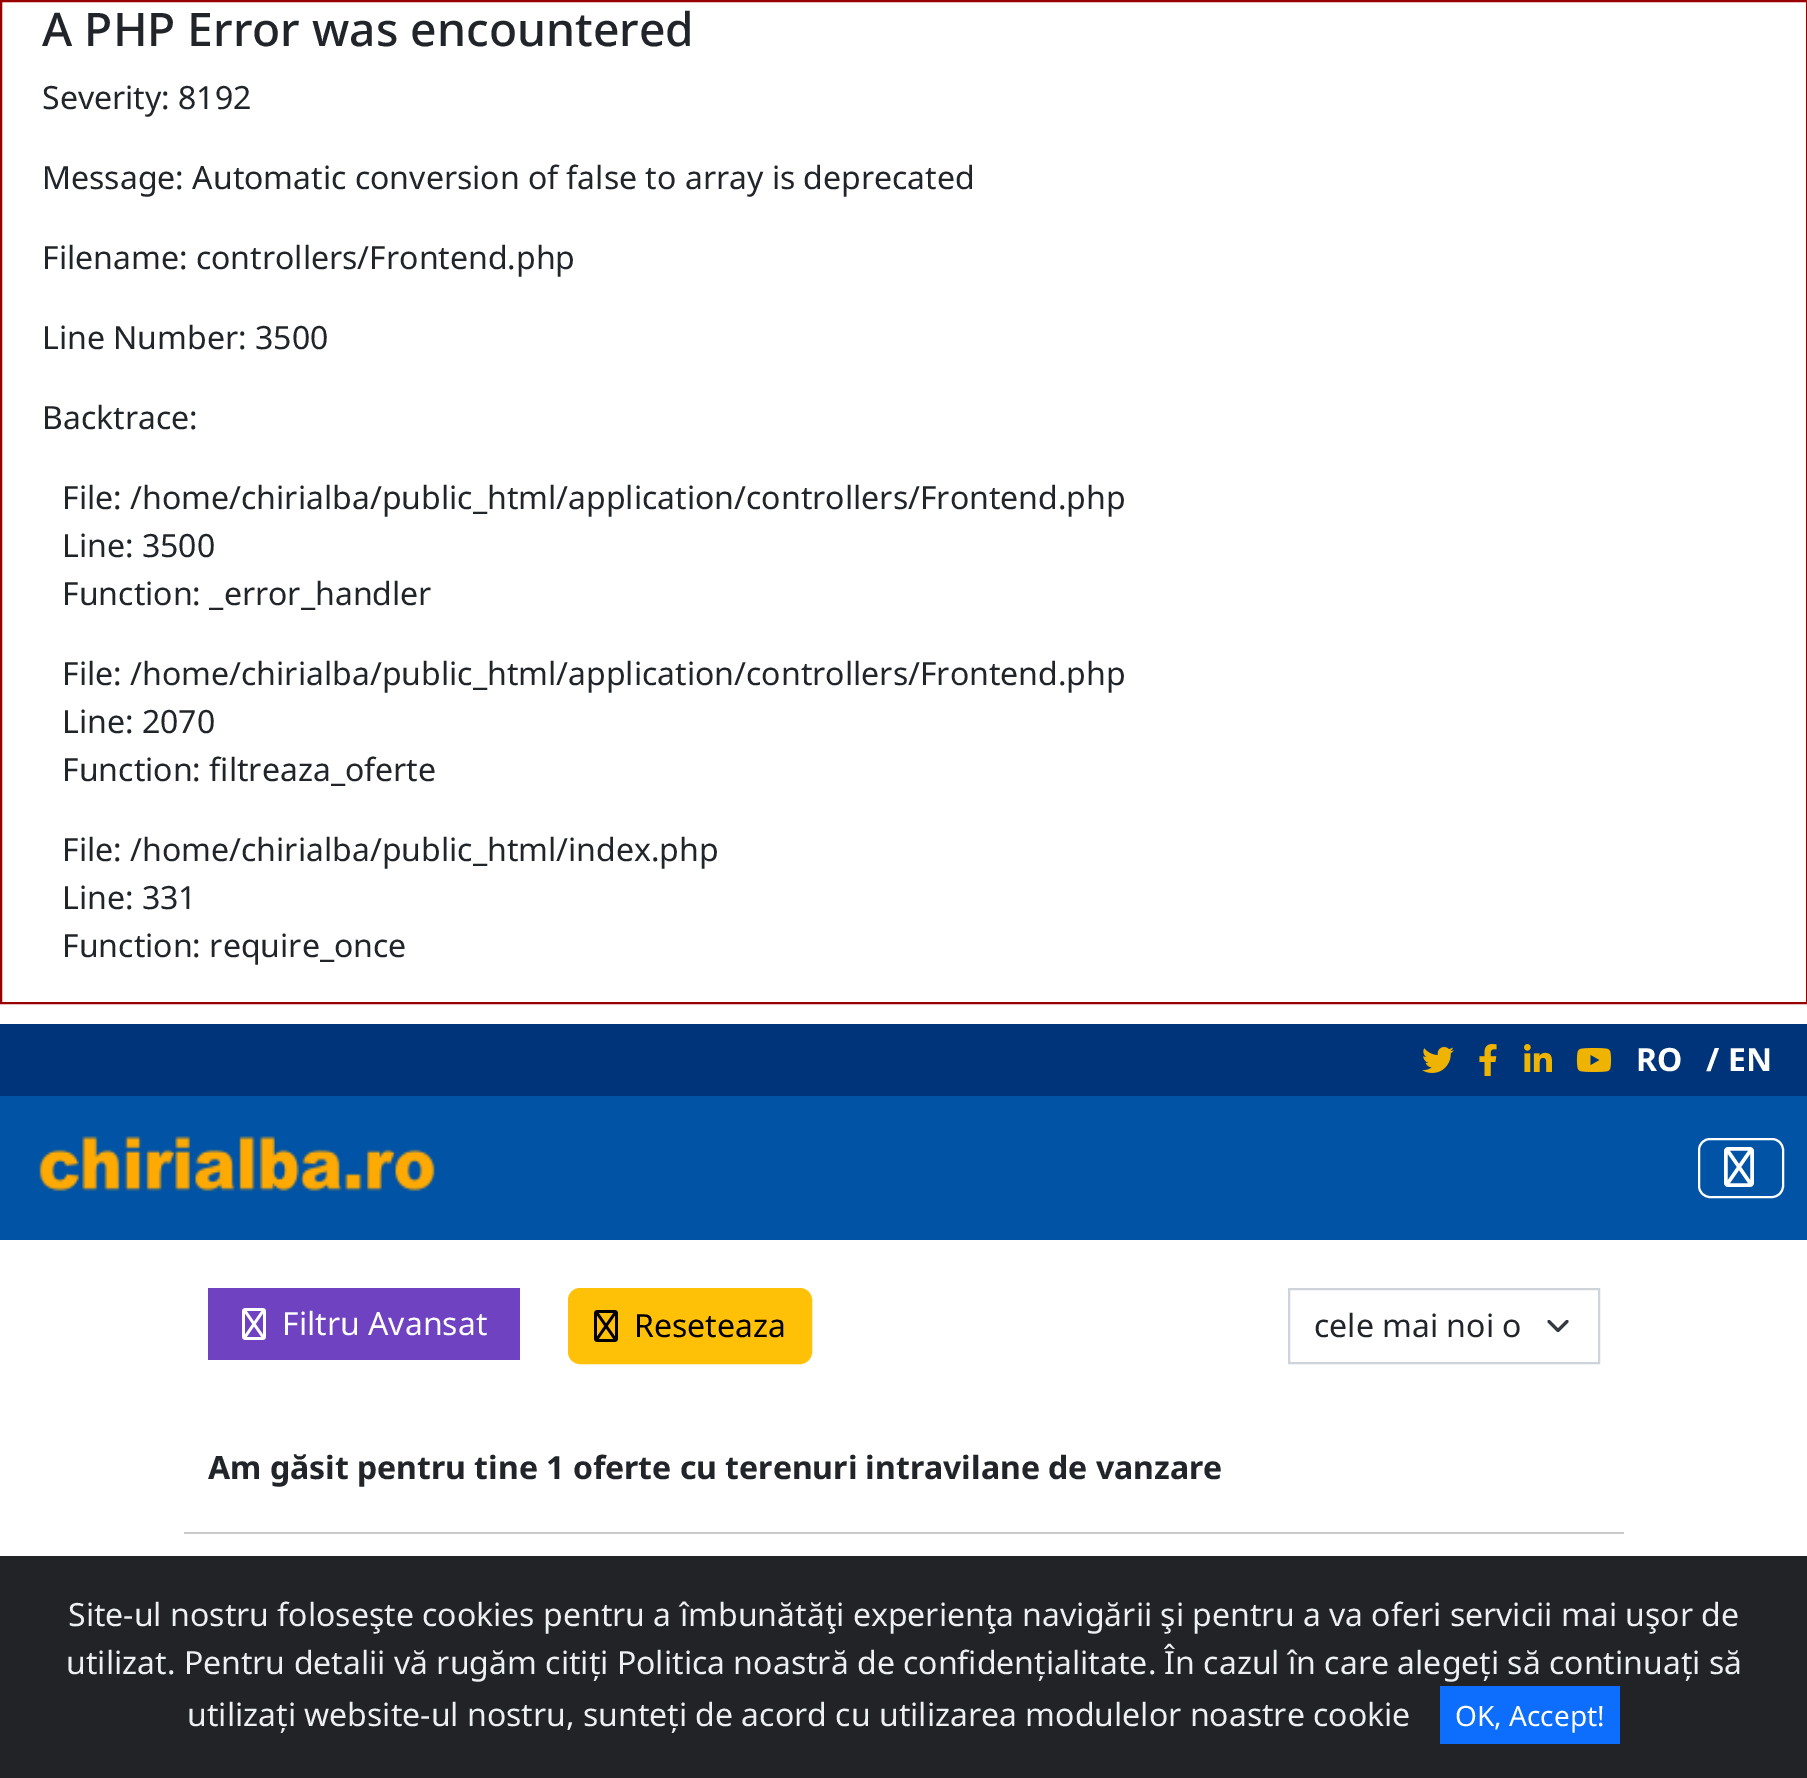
%!PS
<< /PageSize [1807 1778] >> setpagedevice
/rgb { 3 { 255 div 3 1 roll } repeat setrgbcolor } def
/font { [ exch dup neg 0 0 3 -1 roll 0 0 ] selectfont } def
/roundrect { 5 dict begin { /r /h /w /y /x } { exch def } forall
  x r add y moveto x w add y 2 copy h add r arct x w add y h add x 1 index r arct
  x y h add x y r arct x y 2 copy exch w add exch r arct closepath end } def
/picture { 5 dict begin { /h /w /y /x /name } { exch def } forall
  gsave x y translate w h scale
  w h 8 [w 0 0 h 0 0] name (r) file false 3 colorimage grestore end } def
0 1778 translate 1 -1 scale
4 setmiterlimit
255 255 255 rgb
0 0 1807 1778 rectfill
153 0 0 rgb
2 setlinewidth
1 1 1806 1002 rectstroke
0 52 122 rgb
0 1024 1807 72 rectfill
(img/1.rgb) 1422 1047 32 26 picture
(img/2.rgb) 1479 1044 18 32 picture
(img/3.rgb) 1524 1044 28 28 picture
(img/4.rgb) 1576 1048 36 24 picture
0 83 165 rgb
0 1096 1807 144 rectfill
(img/5.rgb) 39 1136 396 56 picture
255 255 255 rgb
1699 1139 84 58 11 roundrect stroke
(img/6.rgb) 1724 1147 30 40 picture
111 66 193 rgb
208 1288 312 72 rectfill
(img/7.rgb) 242 1308 24 32 picture
255 193 7 rgb
569 1289 242 74 11 roundrect gsave fill grestore
stroke
(img/8.rgb) 594 1310 24 32 picture
52 58 64 rgb
3 setlinewidth
1 setlinecap
1 setlinejoin
1549 1321.5 moveto 1558 1330.5 lineto 1567 1321.5 lineto stroke
206 212 218 rgb
2 setlinewidth
0 setlinecap
0 setlinejoin
1289 1289 310 74 rectstroke
[
  [184 1532 1440 2 200 201 202]
  [0 1556 1807 222 33 35 39]
  [1440 1686 180 58 13 110 253]
] { aload pop rgb rectfill } forall
/NotoSans-Medium 46.25 font
33 37 41 rgb
42 46 moveto (A PHP Error was encountered) show
/NotoSans-Regular 32 font
[
  [(Severity: 8192) 42 109]
  [(Message: Automatic conversion of false to array is deprecated) 42 189]
  [(Filename: controllers/Frontend.php) 42 269]
  [(Line Number: 3500) 42 349]
  [(Backtrace:) 42 429]
  [(File: /home/chirialba/public_html/application/controllers/Frontend.php) 62 509]
  [(Line: 3500) 62 557]
  [(Function: _error_handler) 62 605]
  [(File: /home/chirialba/public_html/application/controllers/Frontend.php) 62 685]
  [(Line: 2070) 62 733]
  [(Function: filtreaza_oferte) 62 781]
  [(File: /home/chirialba/public_html/index.php) 62 861]
  [(Line: 331) 62 909]
  [(Function: require_once) 62 957]
] { aload pop moveto show } forall
/NotoSans-Bold 32 font
255 255 255 rgb
1636 1071 moveto (RO) show
1706 1071 moveto (/ EN) show
/NotoSans-Regular 32 font
282 1335 moveto (Filtru Avansat) show
0 0 0 rgb
634 1337 moveto (Reseteaza) show
33 37 41 rgb
1314 1337 moveto (cele mai noi o) show
/NotoSans-Bold 32 font
208 1479 moveto (Am găsit pentru tine 1 oferte cu terenuri intravilane de vanzare) show
/NotoSans-Regular 32 font
236 240 241 rgb
[
  [(Site-ul nostru foloseşte cookies pentru a îmbunătăţi experienţa navigării şi pentru a va oferi servicii mai uşor de) 68 1626]
  [(utilizat. Pentru detalii vă rugăm citiți Politica noastră de confidențialitate. În cazul în care alegeți să continuați să) 66 1674]
  [(utilizați website-ul nostru, sunteți de acord cu utilizarea modulelor noastre cookie) 187 1726]
] { aload pop moveto show } forall
/NotoSans-Regular 28 font
255 255 255 rgb
1455 1726 moveto (OK, Accept!) show
showpage
